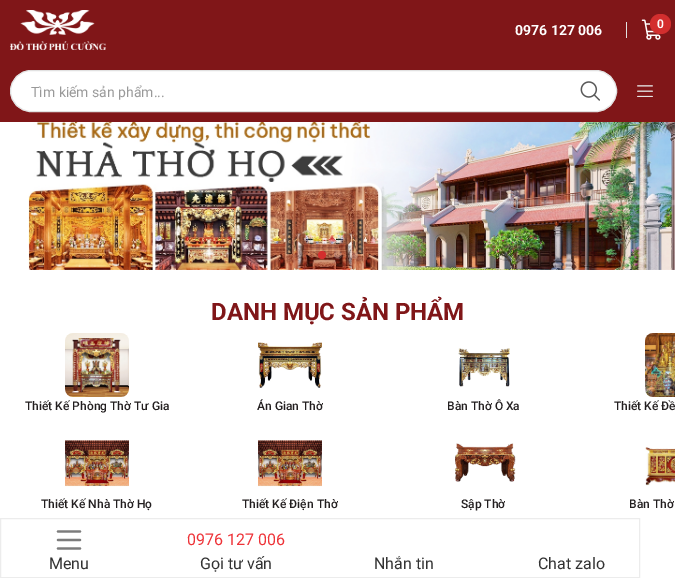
%!PS
<< /PageSize [675 578] /PageUsesTransparency true >> setpagedevice
/rgb { 3 { 255 div 3 1 roll } repeat setrgbcolor } def
/font { [ exch dup neg 0 0 3 -1 roll 0 0 ] selectfont } def
/alpha { dup .setfillconstantalpha .setstrokeconstantalpha } def
/circle { newpath 0 360 arc closepath } def
/roundrect { 5 dict begin { /r /h /w /y /x } { exch def } forall
  x r add y moveto x w add y 2 copy h add r arct x w add y h add x 1 index r arct
  x y h add x y r arct x y 2 copy exch w add exch r arct closepath end } def
/picture { 5 dict begin { /h /w /y /x /name } { exch def } forall
  gsave x y translate w h scale
  w h 8 [w 0 0 h 0 0] name (r) file false 3 colorimage grestore end } def
0 .pushpdf14devicefilter
0 578 translate 1 -1 scale
4 setmiterlimit
128 22 24 rgb
0 0 675 578 rectfill
(img/1.rgb) 10 10 96 40 picture
225 225 225 rgb
626 22 1 16 rectfill
(img/2.rgb) 641 19 20 21 picture
211 46 46 rgb
650 14 21 20 10 roundrect fill
255 255 255 rgb
10.5 70.5 606 41 20.5 roundrect gsave fill grestore
225 225 225 rgb
stroke
(img/3.rgb) 580 81 20 20 picture
(img/4.rgb) 637 85 16 12 picture
255 255 255 rgb
0 122 675 456 rectfill
(img/5.rgb) 28 122 647 148 picture
211 46 46 rgb
322 255 4 circle fill
0.2 alpha
238 238 238 rgb
338 255 4 circle fill
354 255 4 circle fill
1 alpha
(img/6.rgb) 65 333 64 64 picture
(img/7.rgb) 258 342 64 46 picture
(img/8.rgb) 458 348 52 39 picture
(img/9.rgb) 645 333 30 64 picture
(img/10.rgb) 65 440 64 47 picture
(img/10.rgb) 258 440 64 47 picture
(img/11.rgb) 455 443 61 39 picture
(img/12.rgb) 645 447 30 39 picture
236 236 236 rgb
0.5 518.5 639 59 rectstroke
124 124 124 rgb
2.2 setlinewidth
1 setlinecap
58 531.5 moveto 80 531.5 lineto 58 540 moveto 80 540 lineto 58 548.5 moveto 80 548.5 lineto stroke
/Roboto-Bold 14 font
255 255 255 rgb
515 35 moveto (0976 127 006) show
/Roboto-SemiBold 12 font
657 28 moveto (0) show
/Roboto-Regular 14 font
153 153 153 rgb
31 97 moveto (Tìm kiếm sản phẩm...) show
/Roboto-Bold 24 font
128 22 24 rgb
211 320 moveto (DANH MỤC SẢN PHẨM) show
/Roboto-Medium 12 font
35 31 32 rgb
[
  [(Thiết Kế Phòng Thờ Tư Gia) 25 410]
  [(Án Gian Thờ) 257 410]
  [(Bàn Thờ Ô Xa) 447 410]
  [(Thiết Kế Đề) 614 410]
  [(Thiết Kế Nhà Thờ Họ) 41 508]
  [(Thiết Kế Điện Thờ) 242 508]
  [(Sập Thờ) 461 508]
  [(Bàn Thờ) 629 508]
] { aload pop moveto show } forall
/Roboto-Regular 16 font
51 51 51 rgb
49 569 moveto (Menu) show
238 51 56 rgb
187 545 moveto (0976 127 006) show
51 51 51 rgb
[
  [(Gọi tư vấn) 200 569]
  [(Nhắn tin) 374 569]
  [(Chat zalo) 538 569]
] { aload pop moveto show } forall
.poppdf14devicefilter showpage
